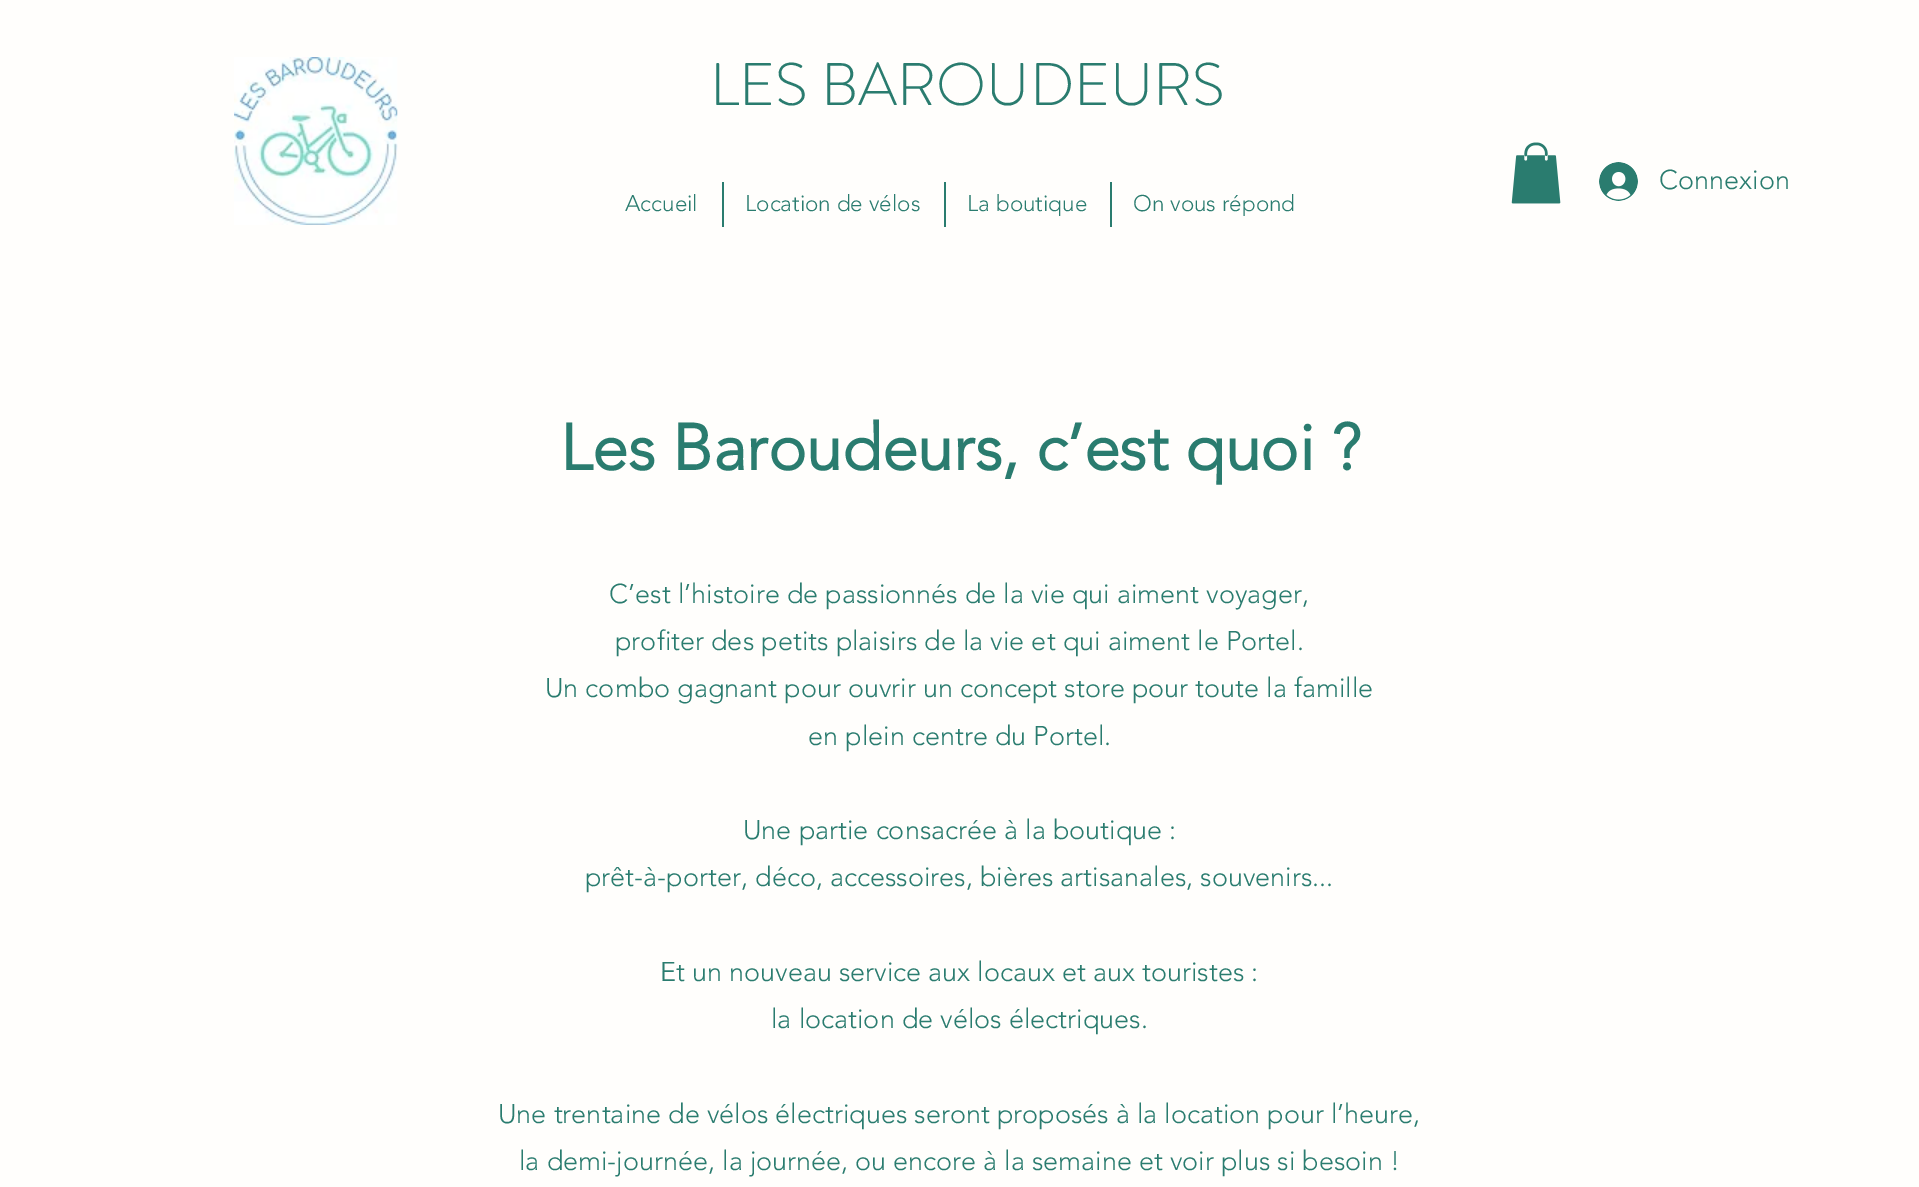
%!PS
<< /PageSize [1919 1187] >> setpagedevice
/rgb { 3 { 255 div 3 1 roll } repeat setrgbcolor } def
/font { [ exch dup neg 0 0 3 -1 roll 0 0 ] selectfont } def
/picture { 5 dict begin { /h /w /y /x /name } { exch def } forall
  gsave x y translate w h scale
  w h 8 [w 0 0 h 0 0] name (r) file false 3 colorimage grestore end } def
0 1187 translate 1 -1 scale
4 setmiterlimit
255 254 252 rgb
0 0 1919 1187 rectfill
(img/1.rgb) 234 57 164 168 picture
(img/2.rgb) 1511 142 50 62 picture
(img/3.rgb) 1599 162 39 39 picture
[
  [722 182 2 45 42 124 111]
  [944 182 2 45 42 124 111]
  [1110 182 2 45 42 124 111]
] { aload pop rgb rectfill } forall
/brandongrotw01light-Light 60 font
710 105 moveto (LES BAROUDEURS) show
/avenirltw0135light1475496-Light 27 font
1659 189 moveto (Connexion) show
/avenirltw0135light1475496-Light 22.5 font
[
  [(Accueil) 625 211]
  [(Location de vélos) 745 211]
  [(La boutique) 967 211]
  [(On vous répond) 1133 211]
] { aload pop moveto show } forall
/avenirltw0135light1475496-Bold 64.5 font
560 470 moveto (Les Baroudeurs, c’est quoi ?) show
/avenirltw0135light1475496-Light 27 font
[
  [(C’est l’histoire de passionnés de la vie qui aiment voyager,) 609 603]
  [(profiter des petits plaisirs de la vie et qui aiment le Portel.) 615 650]
  [(Un combo gagnant pour ouvrir un concept store pour toute la famille) 545 697]
  [(en plein centre du Portel.) 808 745]
  [(Une partie consacrée à la boutique :) 743 839]
  [(prêt-à-porter, déco, accessoires, bières artisanales, souvenirs...) 585 886]
  [(Et un nouveau service aux locaux et aux touristes :) 660 981]
  [(la location de vélos électriques.) 771 1028]
  [(Une trentaine de vélos électriques seront proposés à la location pour l’heure,) 498 1123]
  [(la demi-journée, la journée, ou encore à la semaine et voir plus si besoin !) 519 1170]
] { aload pop moveto show } forall
showpage
